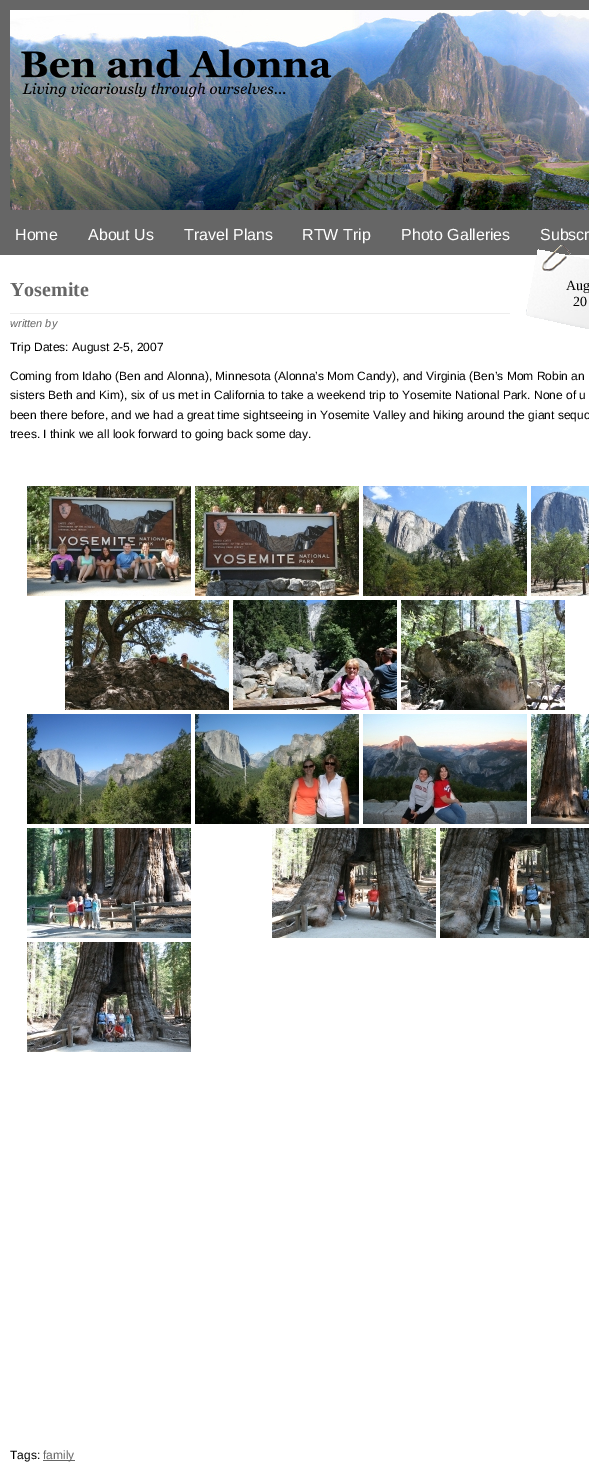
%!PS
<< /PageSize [589 1464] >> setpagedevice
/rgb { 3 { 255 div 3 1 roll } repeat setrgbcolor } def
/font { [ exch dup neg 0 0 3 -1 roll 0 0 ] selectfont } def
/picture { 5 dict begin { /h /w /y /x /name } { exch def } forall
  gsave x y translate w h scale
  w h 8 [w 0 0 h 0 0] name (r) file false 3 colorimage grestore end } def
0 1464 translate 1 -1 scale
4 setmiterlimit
102 102 102 rgb
0 0 589 1464 rectfill
(img/1.rgb) 10 10 579 200 picture
255 255 255 rgb
0 255 589 1209 rectfill
238 238 238 rgb
10 313 500 1 rectfill
(img/2.rgb) 526 245 63 84 picture
(img/3.rgb) 27 486 164 110 picture
(img/4.rgb) 195 486 164 110 picture
(img/5.rgb) 363 486 164 110 picture
(img/6.rgb) 531 486 58 110 picture
(img/7.rgb) 65 600 164 110 picture
(img/8.rgb) 233 600 164 110 picture
(img/9.rgb) 401 600 164 110 picture
(img/10.rgb) 27 714 164 110 picture
(img/11.rgb) 195 714 164 110 picture
(img/12.rgb) 363 714 164 110 picture
(img/13.rgb) 531 714 58 110 picture
(img/14.rgb) 27 828 164 110 picture
(img/15.rgb) 272 828 164 110 picture
(img/16.rgb) 440 828 149 110 picture
(img/17.rgb) 27 942 164 110 picture
102 102 102 rgb
43 1460 32 1 rectfill
/LiberationSans-Regular 16 font
255 255 255 rgb
[
  [(Home) 15 240]
  [(About Us) 88 240]
  [(Travel Plans) 184 240]
  [(RTW Trip) 302 240]
  [(Photo Galleries) 401 240]
  [(Subscr) 540 240]
] { aload pop moveto show } forall
/LiberationSerif-Bold 20 font
102 102 102 rgb
10 296 moveto (Yosemite) show
/LiberationSerif-Regular 14 font
0 0 0 rgb
566 290 moveto (Aug) show
573 306 moveto (20) show
/LiberationSans-Italic 11 font
102 102 102 rgb
10 327 moveto (written by) show
/LiberationSans-Regular 12 font
0 0 0 rgb
[
  [(Trip Dates: August 2-5, 2007) 10 351]
  [(Coming from Idaho \(Ben and Alonna\), Minnesota \(Alonna’s Mom Candy\), and Virginia \(Ben’s Mom Robin an) 10 380]
  [(sisters Beth and Kim\), six of us met in California to take a weekend trip to Yosemite National Park. None of u) 10 399]
  [(been there before, and we had a great time sightseeing in Yosemite Valley and hiking around the giant sequo) 10 419]
  [(trees. I think we all look forward to going back some day.) 10 438]
  [(Tags:) 10 1459]
] { aload pop moveto show } forall
102 102 102 rgb
43 1459 moveto (family) show
showpage
